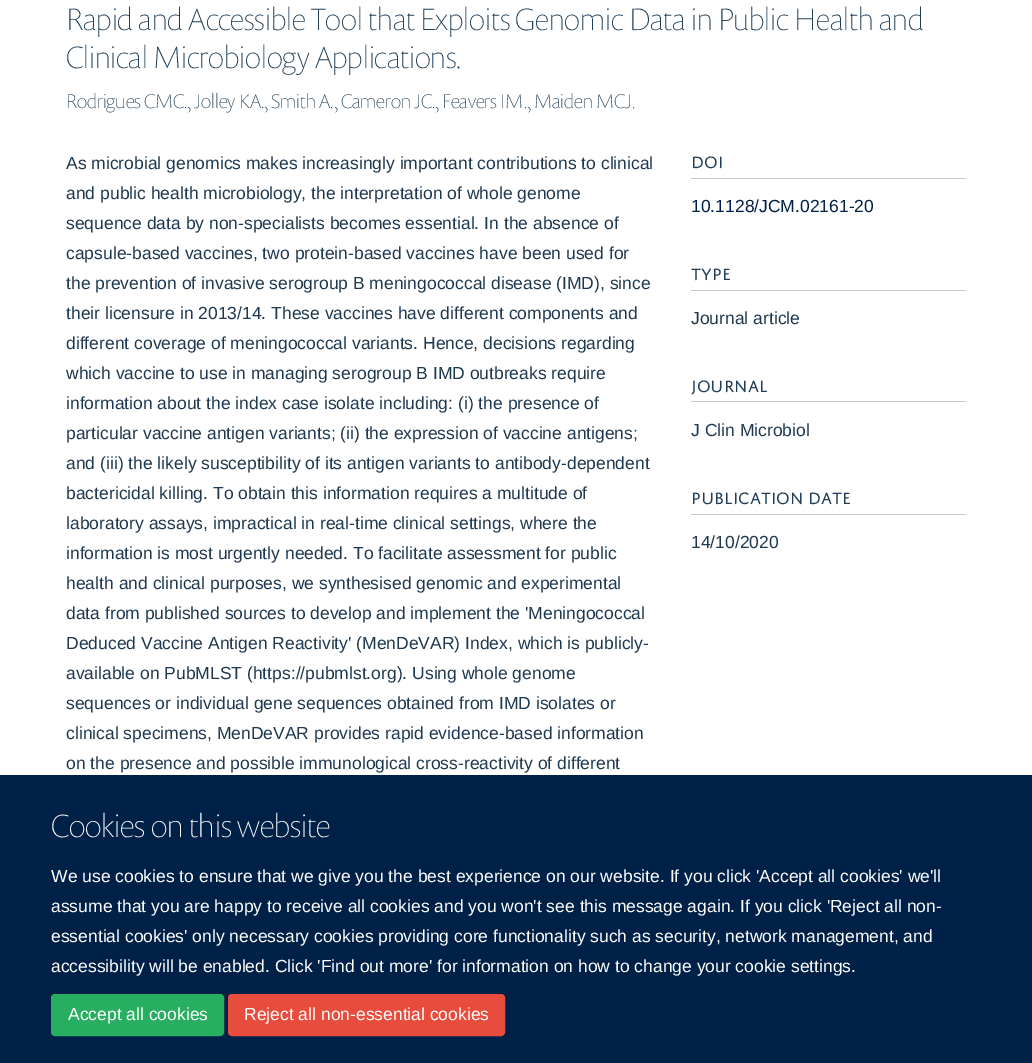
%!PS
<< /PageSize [1032 1063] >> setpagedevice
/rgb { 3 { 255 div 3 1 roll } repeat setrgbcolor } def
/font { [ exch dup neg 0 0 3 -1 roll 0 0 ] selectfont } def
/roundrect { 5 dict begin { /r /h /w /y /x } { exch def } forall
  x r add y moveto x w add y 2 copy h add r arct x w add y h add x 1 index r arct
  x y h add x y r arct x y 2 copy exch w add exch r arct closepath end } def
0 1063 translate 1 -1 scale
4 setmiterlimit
255 255 255 rgb
0 0 1032 1063 rectfill
[
  [691 178 275 1 198 202 207]
  [691 290 275 1 198 202 207]
  [691 401 275 1 198 202 207]
  [691 514 275 1 198 202 207]
  [0 775 1032 288 0 33 71]
] { aload pop rgb rectfill } forall
39 174 96 rgb
51.5 994.5 172 41 3.5 roundrect gsave fill grestore
stroke
231 76 60 rgb
228.5 994.5 276 41 3.5 roundrect gsave fill grestore
stroke
/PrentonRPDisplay-Thin 31.25 font
32 62 88 rgb
66 30 moveto (Rapid and Accessible Tool that Exploits Genomic Data in Public Health and) show
66 68 moveto (Clinical Microbiology Applications.) show
/PrentonRPDisplay-Thin 20 font
66 108 moveto (Rodrigues CMC., Jolley KA., Smith A., Cameron JC., Feavers IM., Maiden MCJ.) show
/LiberationSans-Regular 17.5 font
29 56 80 rgb
[
  [(As microbial genomics makes increasingly important contributions to clinical) 66 169]
  [(and public health microbiology, the interpretation of whole genome) 66 199]
  [(sequence data by non-specialists becomes essential. In the absence of) 66 229]
  [(capsule-based vaccines, two protein-based vaccines have been used for) 66 259]
  [(the prevention of invasive serogroup B meningococcal disease \(IMD\), since) 66 289]
  [(their licensure in 2013/14. These vaccines have different components and) 66 319]
  [(different coverage of meningococcal variants. Hence, decisions regarding) 66 349]
  [(which vaccine to use in managing serogroup B IMD outbreaks require) 66 379]
  [(information about the index case isolate including: \(i\) the presence of) 66 409]
  [(particular vaccine antigen variants; \(ii\) the expression of vaccine antigens;) 66 439]
  [(and \(iii\) the likely susceptibility of its antigen variants to antibody-dependent) 66 469]
  [(bactericidal killing. To obtain this information requires a multitude of) 66 499]
  [(laboratory assays, impractical in real-time clinical settings, where the) 66 529]
  [(information is most urgently needed. To facilitate assessment for public) 66 559]
  [(health and clinical purposes, we synthesised genomic and experimental) 66 589]
  [(data from published sources to develop and implement the 'Meningococcal) 66 619]
  [(Deduced Vaccine Antigen Reactivity' \(MenDeVAR\) Index, which is publicly-) 66 649]
  [(available on PubMLST \(https://pubmlst.org\). Using whole genome) 66 679]
  [(sequences or individual gene sequences obtained from IMD isolates or) 66 709]
  [(clinical specimens, MenDeVAR provides rapid evidence-based information) 66 739]
  [(on the presence and possible immunological cross-reactivity of different) 66 769]
] { aload pop moveto show } forall
/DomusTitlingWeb-Regular 17.5 font
32 62 88 rgb
691 168 moveto (DOI) show
/LiberationSans-Regular 17.5 font
0 33 71 rgb
691 212 moveto (10.1128/JCM.02161-20) show
/DomusTitlingWeb-Regular 17.5 font
32 62 88 rgb
691 280 moveto (TYPE) show
/LiberationSans-Regular 17.5 font
29 56 80 rgb
691 324 moveto (Journal article) show
/DomusTitlingWeb-Regular 17.5 font
32 62 88 rgb
691 392 moveto (JOURNAL) show
/LiberationSans-Regular 17.5 font
29 56 80 rgb
691 436 moveto (J Clin Microbiol) show
/DomusTitlingWeb-Regular 17.5 font
32 62 88 rgb
691 504 moveto (PUBLICATION DATE) show
/LiberationSans-Regular 17.5 font
29 56 80 rgb
691 548 moveto (14/10/2020) show
/PrentonRPDisplay-Thin 32.5 font
255 255 255 rgb
51 837 moveto (Cookies on this website) show
/LiberationSans-Regular 17.5 font
[
  [(We use cookies to ensure that we give you the best experience on our website. If you click 'Accept all cookies' we'll) 51 882]
  [(assume that you are happy to receive all cookies and you won't see this message again. If you click 'Reject all non-) 51 912]
  [(essential cookies' only necessary cookies providing core functionality such as security, network management, and) 51 942]
  [(accessibility will be enabled. Click 'Find out more' for information on how to change your cookie settings.) 51 972]
  [(Accept all cookies) 68 1020]
  [(Reject all non-essential cookies) 244 1020]
] { aload pop moveto show } forall
showpage
